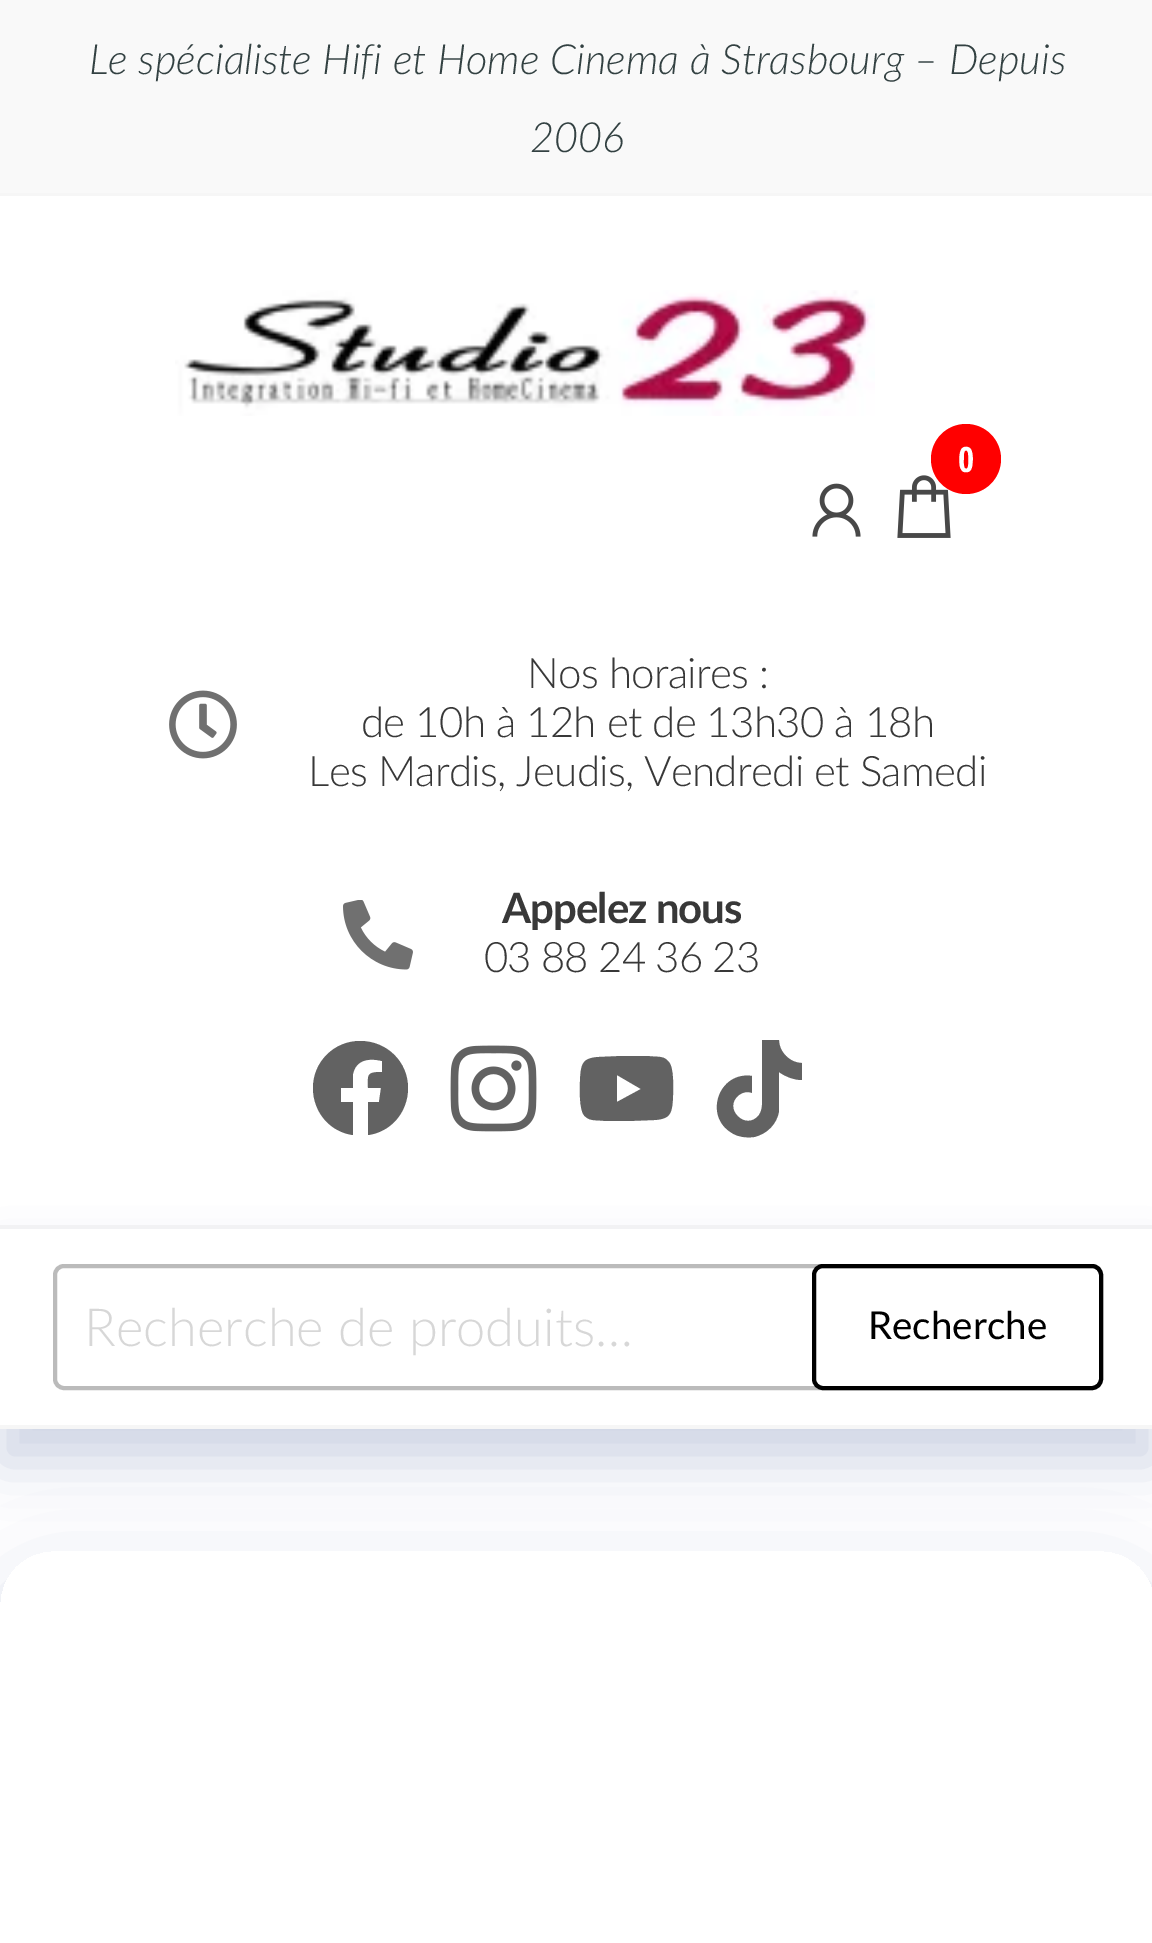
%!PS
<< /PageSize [1152 1943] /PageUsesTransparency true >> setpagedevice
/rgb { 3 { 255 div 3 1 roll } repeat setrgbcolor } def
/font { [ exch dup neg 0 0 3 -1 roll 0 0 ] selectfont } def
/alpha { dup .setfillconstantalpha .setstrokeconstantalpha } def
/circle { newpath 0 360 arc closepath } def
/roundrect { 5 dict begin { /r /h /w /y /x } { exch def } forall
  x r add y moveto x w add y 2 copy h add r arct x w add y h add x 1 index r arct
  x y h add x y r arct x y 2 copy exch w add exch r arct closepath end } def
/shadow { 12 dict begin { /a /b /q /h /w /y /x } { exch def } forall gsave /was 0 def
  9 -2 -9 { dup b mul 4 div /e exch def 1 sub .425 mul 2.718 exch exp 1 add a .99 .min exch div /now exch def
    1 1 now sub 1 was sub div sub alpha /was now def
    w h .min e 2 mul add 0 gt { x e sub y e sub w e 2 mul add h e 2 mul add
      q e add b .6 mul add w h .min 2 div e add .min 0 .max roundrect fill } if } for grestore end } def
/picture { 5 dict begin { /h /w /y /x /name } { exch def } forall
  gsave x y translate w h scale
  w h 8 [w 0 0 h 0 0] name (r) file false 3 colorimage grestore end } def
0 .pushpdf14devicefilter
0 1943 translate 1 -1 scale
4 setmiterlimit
255 255 255 rgb
0 0 1152 1943 rectfill
[
  [0 0 1152 193 249 249 249]
  [0 193 1152 3 246 246 246]
  [0 1225 1152 4 246 246 246]
] { aload pop rgb rectfill } forall
(img/1.rgb) 175 290 700 126 picture
(img/2.rgb) 897 475 54 63 picture
255 0 0 rgb
966 459 35 circle fill
(img/3.rgb) 812 483 49 54 picture
(img/4.rgb) 169 690 68 69 picture
(img/5.rgb) 343 900 70 70 picture
98 98 98 rgb
408 1088 moveto 408 1062 387 1041 360 1041 curveto 334 1041 313 1062 313 1088 curveto 313 1112 330 1132 353 1135 curveto 353 1102 lineto 341 1102 lineto 341 1088 lineto 353 1088 lineto 353 1074 lineto 356 1059 370 1058 382 1061 curveto 382 1072 lineto 366 1072 368 1075 368 1088 curveto 381 1088 lineto 379 1102 lineto 368 1102 lineto 368 1135 lineto 391 1132 408 1112 408 1088 curveto closepath fill
(img/6.rgb) 450 1045 87 87 picture
671 1066 moveto 670 1063 668 1060 664 1058 curveto 659 1056 653 1057 648 1056 curveto 622 1056 lineto 599 1057 lineto 582 1058 581 1064 580 1080 curveto 580 1090 579 1101 582 1111 curveto 583 1115 585 1117 589 1119 curveto 594 1121 600 1120 605 1121 curveto 628 1121 lineto 654 1120 lineto 671 1119 672 1113 673 1097 curveto 673 1087 674 1076 671 1066 curveto closepath 617 1102 moveto 617 1075 lineto 641 1089 lineto closepath fill
802 1080 moveto 794 1080 786 1077 779 1072 curveto 779 1111 lineto 777 1124 767 1134 754 1137 curveto 746 1138 738 1137 732 1133 curveto 703 1116 719 1071 752 1076 curveto 752 1093 lineto 748 1091 743 1092 739 1095 curveto 722 1108 746 1132 759 1115 curveto 763 1109 762 1102 762 1095 curveto 762 1040 lineto 779 1040 lineto 779 1052 790 1063 802 1063 curveto closepath fill
25 45 120 rgb
0 1264 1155 199 0 26 0.2 shadow
255 255 255 rgb
0 1229 1152 196 rectfill
246 246 246 rgb
0 1425 1152 4 rectfill
187 187 187 rgb
4 setlinewidth
55 1266 1046 122 9 roundrect stroke
0 0 0 rgb
814 1266 287 122 9 roundrect stroke
gsave
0 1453 moveto 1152 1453 lineto 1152 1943 lineto 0 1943 lineto closepath 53 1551 moveto 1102 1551 lineto 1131.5 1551 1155 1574.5 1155 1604 curveto 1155 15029 lineto 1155 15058.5 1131.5 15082 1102 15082 curveto 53 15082 lineto 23.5 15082 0 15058.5 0 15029 curveto 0 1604 lineto 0 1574.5 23.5 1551 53 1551 curveto closepath eoclip newpath
25 45 110 rgb
0 1586 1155 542 53 44 0.2 shadow
grestore
/Lato-LightItalic 41.65 font
51 65 66 rgb
89 74 moveto (Le spécialiste Hifi et Home Cinema à Strasbourg – Depuis) show
530 152 moveto (2006) show
/OpenSansCondensed-Bold 35 font
255 255 255 rgb
958 472 moveto (0) show
/Lato-Light 42 font
56 56 56 rgb
527 688 moveto -0.7 0 (Nos horaires :) ashow
361 737 moveto -0.7 0 (de 10h à 12h et de 13h30 à 18h) ashow
308 786 moveto -0.7 0 (Les Mardis, Jeudis, Vendredi et Samedi) ashow
/Lato-Bold 42 font
502 923 moveto -1 0 (Appelez nous) ashow
/Lato-Light 42 font
484 972 moveto -1 0 (03 88 24 36 23) ashow
/Lato-Light 52.5 font
215 215 215 rgb
84 1346 moveto (Recherche de produits…) show
/Lato-Regular 38.5 font
0 0 0 rgb
868 1339 moveto (Recherche) show
.poppdf14devicefilter showpage
